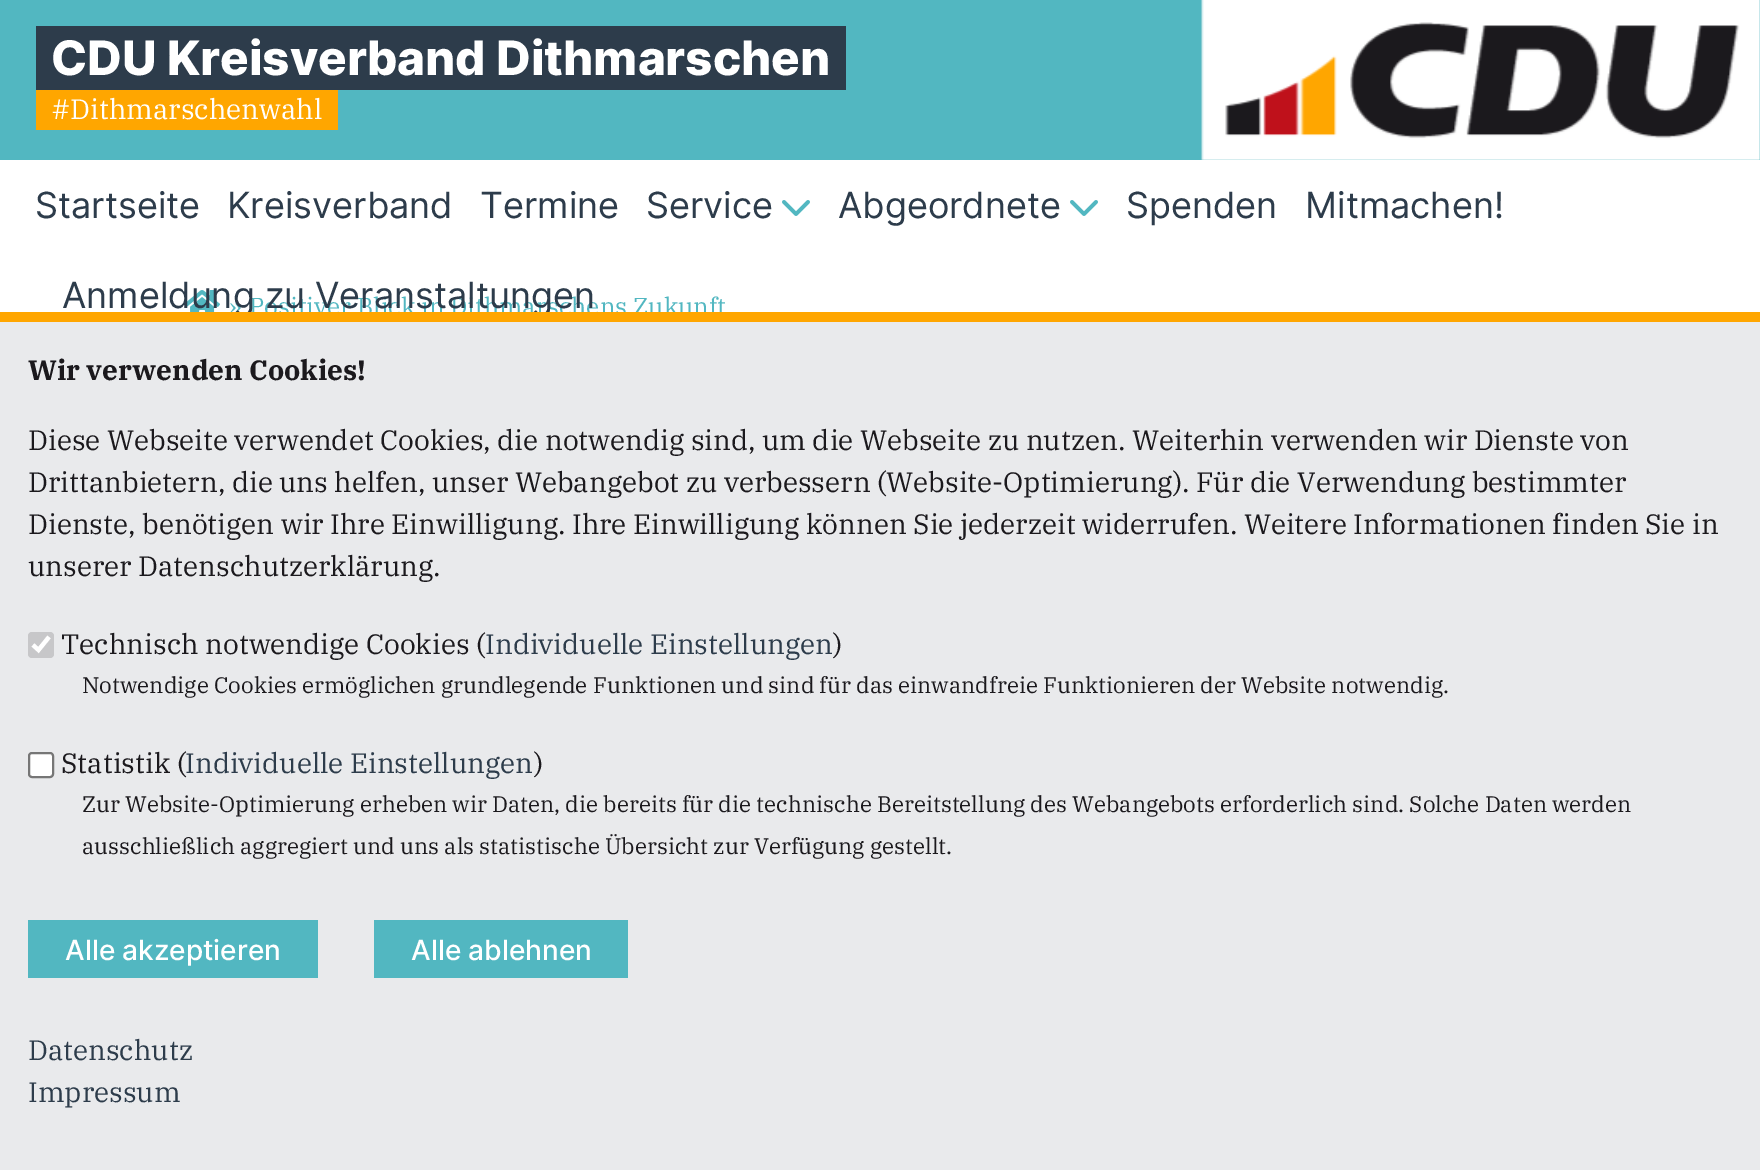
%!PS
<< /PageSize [1760 1170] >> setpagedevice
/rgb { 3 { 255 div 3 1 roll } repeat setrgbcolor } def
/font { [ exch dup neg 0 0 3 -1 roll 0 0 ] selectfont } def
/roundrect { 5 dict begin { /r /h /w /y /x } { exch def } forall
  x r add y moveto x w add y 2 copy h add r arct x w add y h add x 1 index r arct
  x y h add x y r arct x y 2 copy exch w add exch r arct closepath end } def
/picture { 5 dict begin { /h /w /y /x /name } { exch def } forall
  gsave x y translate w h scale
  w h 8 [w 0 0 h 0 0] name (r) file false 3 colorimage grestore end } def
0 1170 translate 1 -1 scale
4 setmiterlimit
255 255 255 rgb
0 0 1760 1170 rectfill
[
  [0 0 1760 160 82 183 193]
  [36 26 810 64 45 60 75]
  [36 90 302 40 255 166 0]
] { aload pop rgb rectfill } forall
(img/1.rgb) 1201 0 559 160 picture
(img/2.rgb) 782 200 28 16 picture
(img/2.rgb) 1070 200 28 16 picture
(img/3.rgb) 184 290 36 22 picture
233 234 236 rgb
0 322 1760 848 rectfill
199 199 201 rgb
28 632 26 26 4 roundrect fill
255 255 255 rgb
4.2 setlinewidth
33 645 moveto 38.5 650 lineto 49 637 lineto stroke
29 753 24 24 3 roundrect gsave fill grestore
118 118 118 rgb
2 setlinewidth
stroke
82 183 193 rgb
28 920 290 58 rectfill
374 920 254 58 rectfill
/Inter-ExtraBold 47.6 font
255 255 255 rgb
51 75 moveto (CDU Kreisverband Dithmarschen) show
/IBMPlexSerif-Regular 28 font
51 119 moveto (#Dithmarschenwahl) show
/Inter-Regular 36 font
45 60 75 rgb
[
  [(Startseite) 35 218]
  [(Kreisverband) 227 218]
  [(Termine) 480 218]
  [(Service) 646 218]
  [(Abgeordnete) 838 218]
  [(Spenden) 1126 218]
  [(Mitmachen!) 1305 218]
] { aload pop moveto show } forall
/IBMPlexSerif-Regular 24.5 font
82 183 193 rgb
229 315 moveto (») show
249 315 moveto (Positiver Blick in Dithmarschens Zukunft) show
/Inter-Regular 36 font
45 60 75 rgb
62 308 moveto (Anmeldung zu Veranstaltungen) show
255 166 0 rgb
0 312 1760 10 rectfill
/IBMPlexSerif-Bold 28 font
27 25 29 rgb
28 380 moveto (Wir verwenden Cookies!) show
/IBMPlexSerif-Regular 28 font
[
  [(Diese Webseite verwendet Cookies, die notwendig sind, um die Webseite zu nutzen. Weiterhin verwenden wir Dienste von) 28 450]
  [(Drittanbietern, die uns helfen, unser Webangebot zu verbessern \(Website-Optimierung\). Für die Verwendung bestimmter) 28 492]
  [(Dienste, benötigen wir Ihre Einwilligung. Ihre Einwilligung können Sie jederzeit widerrufen. Weitere Informationen finden Sie in) 28 534]
  [(unserer Datenschutzerklärung.) 28 576]
  [(Technisch notwendige Cookies \() 61 654]
] { aload pop moveto show } forall
45 60 75 rgb
485 654 moveto (Individuelle Einstellungen) show
27 25 29 rgb
833 654 moveto (\)) show
/IBMPlexSerif-Regular 22.4 font
82 693 moveto (Notwendige Cookies ermöglichen grundlegende Funktionen und sind für das einwandfreie Funktionieren der Website notwendig.) show
/IBMPlexSerif-Regular 28 font
61 773 moveto (Statistik \() show
45 60 75 rgb
185 773 moveto (Individuelle Einstellungen) show
27 25 29 rgb
534 773 moveto (\)) show
/IBMPlexSerif-Regular 22.4 font
82 812 moveto (Zur Website-Optimierung erheben wir Daten, die bereits für die technische Bereitstellung des Webangebots erforderlich sind. Solche Daten werden) show
82 854 moveto (ausschließlich aggregiert und uns als statistische Übersicht zur Verfügung gestellt.) show
/Inter-Medium 28 font
255 255 255 rgb
65 960 moveto (Alle akzeptieren) show
411 960 moveto (Alle ablehnen) show
/IBMPlexSerif-Regular 28 font
45 60 75 rgb
28 1060 moveto (Datenschutz) show
28 1102 moveto (Impressum) show
showpage
